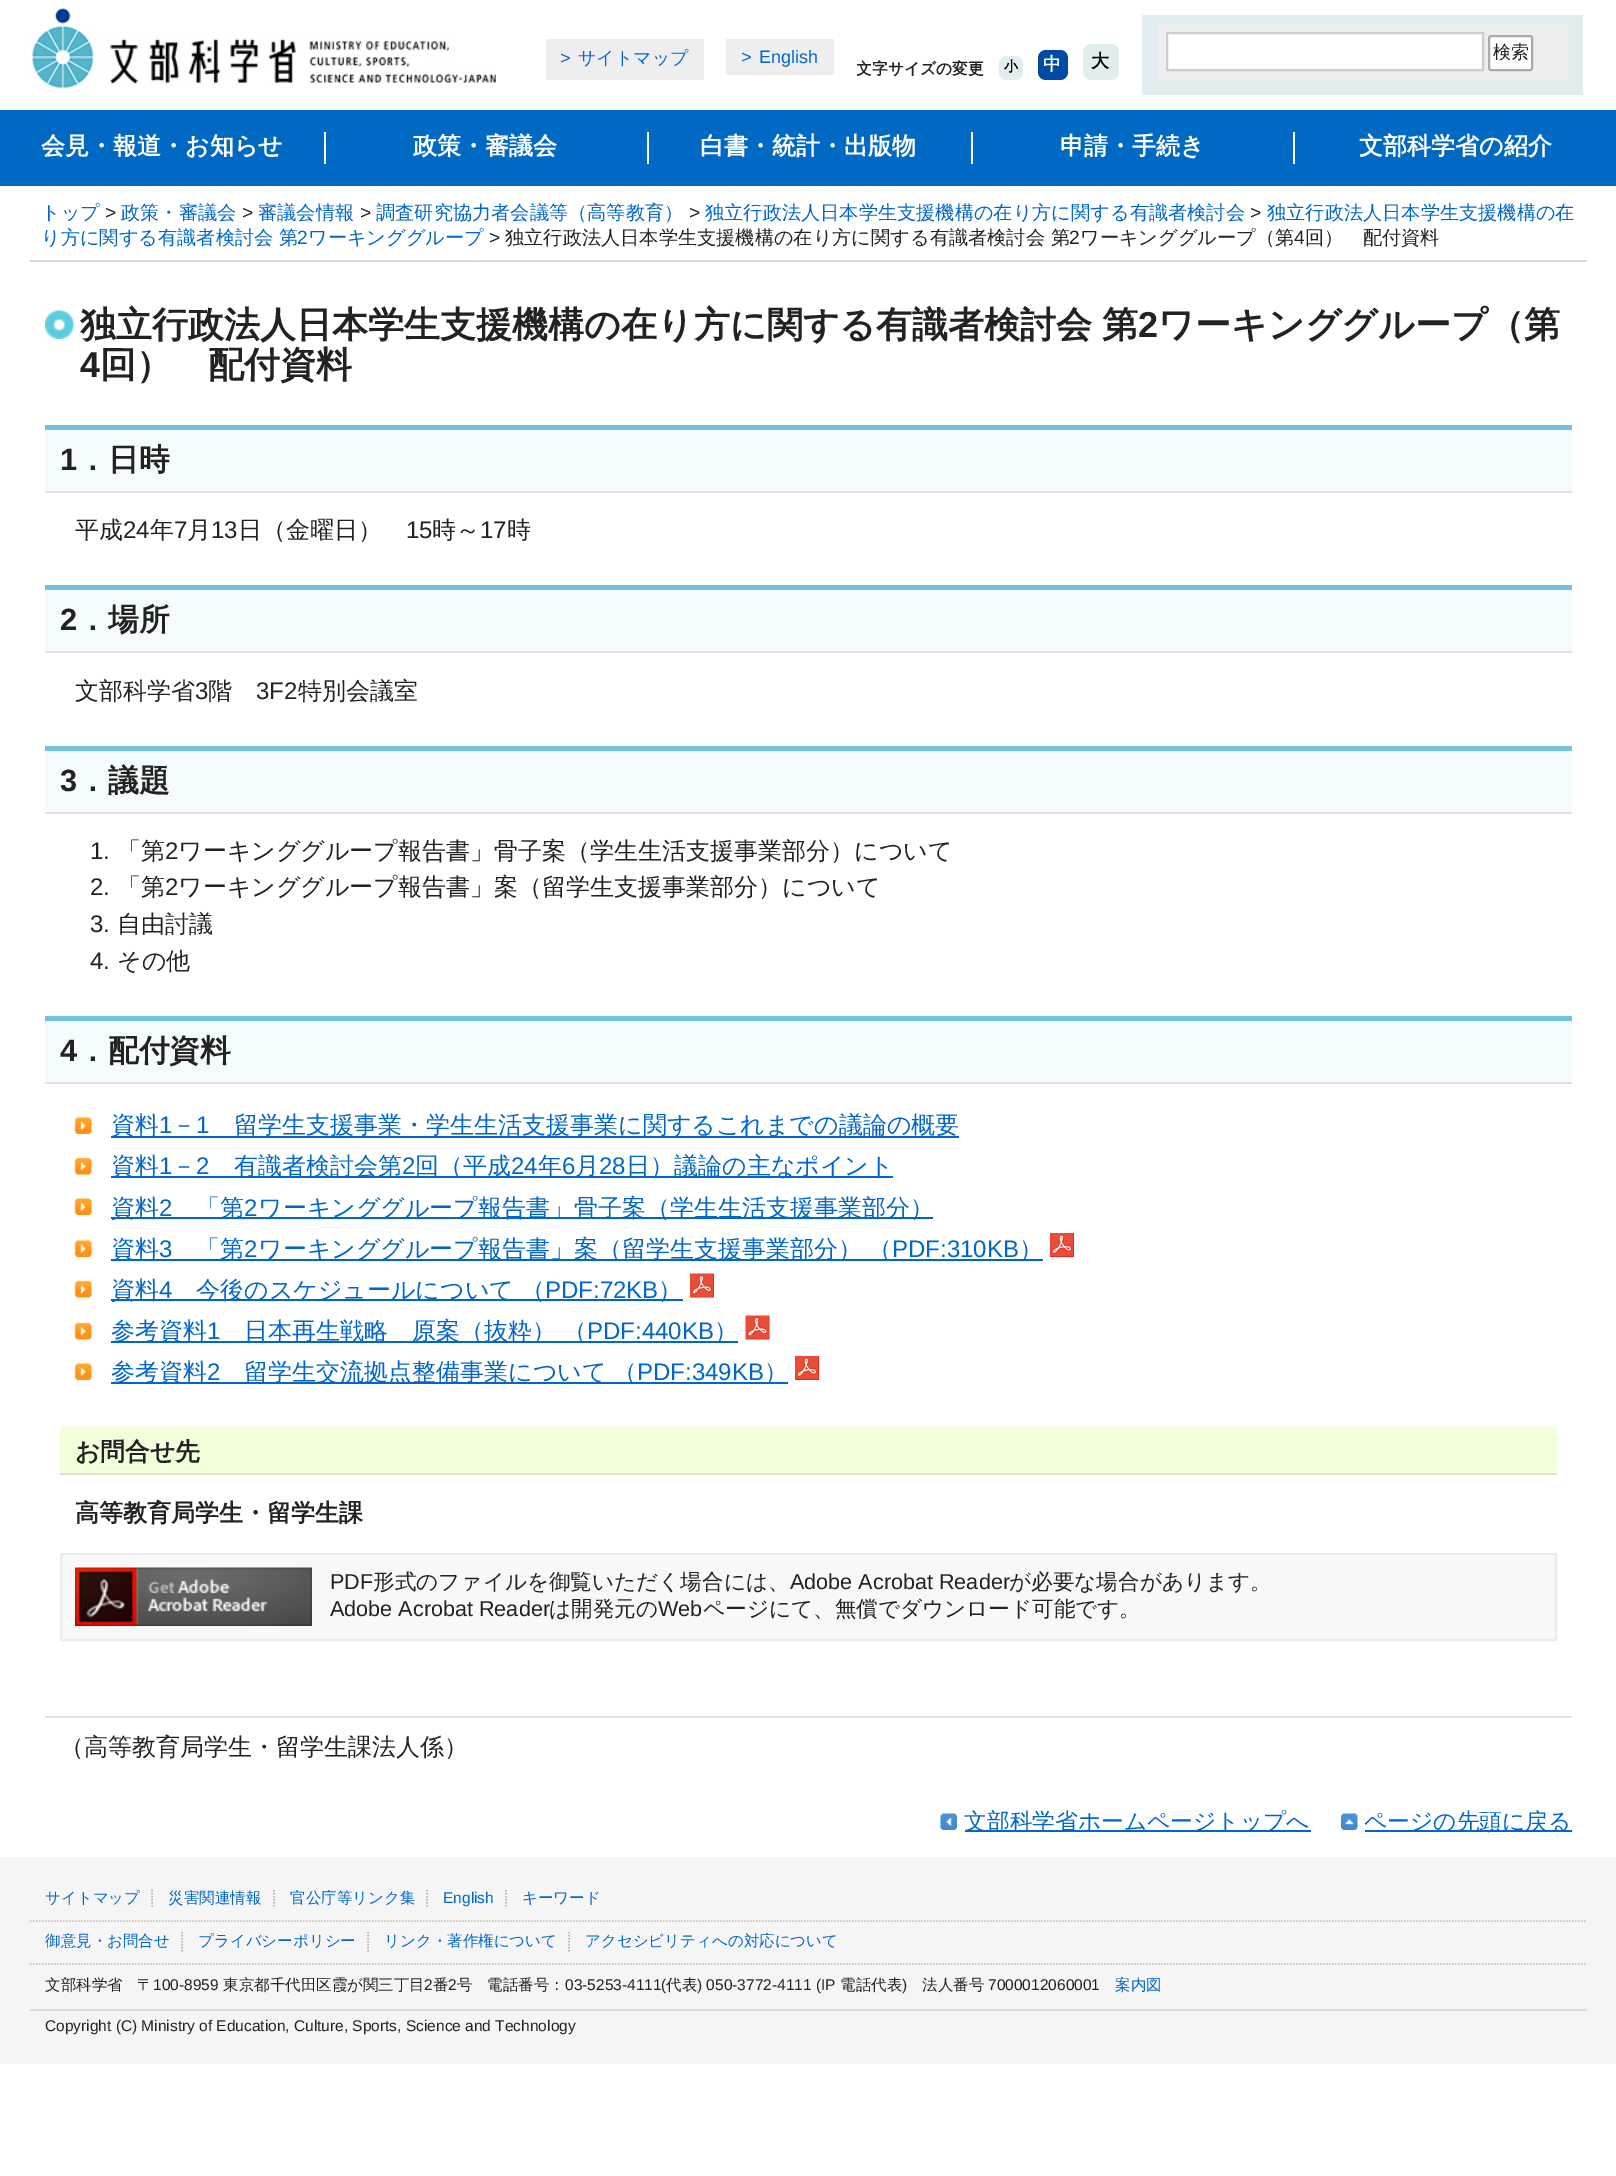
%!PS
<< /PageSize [1616 2176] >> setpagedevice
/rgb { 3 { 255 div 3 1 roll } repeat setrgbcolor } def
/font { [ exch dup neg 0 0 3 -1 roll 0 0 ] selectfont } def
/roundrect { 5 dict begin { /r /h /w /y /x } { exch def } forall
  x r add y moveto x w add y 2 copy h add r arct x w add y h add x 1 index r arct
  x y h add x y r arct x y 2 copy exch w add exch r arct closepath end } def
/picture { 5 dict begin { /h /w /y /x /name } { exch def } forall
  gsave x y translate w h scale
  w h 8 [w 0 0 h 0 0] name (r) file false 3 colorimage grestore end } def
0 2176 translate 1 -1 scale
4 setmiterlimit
255 255 255 rgb
0 0 1616 2176 rectfill
(img/1.rgb) 30 8 466 81 picture
238 238 238 rgb
546 39 158 41 rectfill
726 39 108 36 rectfill
225 238 240 rgb
999 56 24 24 8 roundrect fill
0 74 166 rgb
1038 50 30 30 8 roundrect fill
225 238 240 rgb
1083 44 36 36 8 roundrect fill
1142 15 441 80 rectfill
238 238 238 rgb
1157 23 411 57 rectfill
255 255 255 rgb
1167 33 moveto 1483 33 lineto 1483 70 lineto 1167 70 lineto closepath gsave fill grestore
204 204 204 rgb
2 setlinewidth
stroke
254 254 254 rgb
1489 36 43 34 2 roundrect gsave fill grestore
170 170 170 rgb
stroke
[
  [0 110 1616 76 0 105 195]
  [324 132 2 32 255 255 255]
  [647 132 2 32 255 255 255]
  [971 132 2 32 255 255 255]
  [1293 132 2 32 255 255 255]
  [30 260 1557 2 215 215 215]
] { aload pop rgb rectfill } forall
(img/2.rgb) 45 310 29 29 picture
[
  [45 430 1527 61 244 251 252]
  [45 425 1527 5 112 194 222]
  [45 491 1527 2 225 225 225]
  [45 590 1527 61 244 251 252]
  [45 585 1527 5 112 194 222]
  [45 651 1527 2 225 225 225]
  [45 751 1527 61 244 251 252]
  [45 746 1527 5 112 194 222]
  [45 812 1527 2 225 225 225]
  [45 1021 1527 61 244 251 252]
  [45 1016 1527 5 112 194 222]
  [45 1082 1527 2 225 225 225]
] { aload pop rgb rectfill } forall
(img/3.rgb) 74 1117 18 17 picture
0 102 204 rgb
111 1136 848 2 rectfill
(img/4.rgb) 74 1157 18 18 picture
111 1176 782 2 rectfill
(img/3.rgb) 74 1198 18 17 picture
111 1217 822 2 rectfill
(img/3.rgb) 74 1240 18 17 picture
111 1259 932 2 rectfill
(img/5.rgb) 1050 1233 24 24 picture
(img/4.rgb) 74 1280 18 18 picture
111 1299 572 2 rectfill
(img/6.rgb) 690 1273 24 25 picture
(img/4.rgb) 74 1322 18 18 picture
111 1341 627 2 rectfill
(img/7.rgb) 745 1315 25 25 picture
(img/3.rgb) 74 1363 18 17 picture
111 1382 677 2 rectfill
(img/8.rgb) 795 1356 24 24 picture
241 255 219 rgb
60 1427 1497 46 rectfill
218 225 211 rgb
60 1473 1497 2 rectfill
248 248 248 rgb
61 1554 moveto 1556 1554 lineto 1556 1640 lineto 61 1640 lineto closepath gsave fill grestore
232 236 238 rgb
stroke
(img/9.rgb) 75 1567 237 59 picture
225 225 225 rgb
45 1716 1527 2 rectfill
(img/10.rgb) 940 1813 17 17 picture
0 102 204 rgb
965 1830 346 2 rectfill
(img/11.rgb) 1341 1813 17 17 picture
[
  [1365 1830 207 2 0 102 204]
  [0 1857 1616 207 245 245 245]
  [30 2009 1557 2 218 218 218]
] { aload pop rgb rectfill } forall
194 194 194 rgb
1.5 setlinewidth
[1.5 1.5] 0 setdash
30 1921 moveto 1587 1921 lineto stroke
174 174 174 rgb
152 1890 moveto 152 1908 lineto stroke
274 1890 moveto 274 1908 lineto stroke
427 1890 moveto 427 1908 lineto stroke
506 1890 moveto 506 1908 lineto stroke
194 194 194 rgb
30 1964 moveto 1587 1964 lineto stroke
174 174 174 rgb
182 1932 moveto 182 1951.5 lineto stroke
368 1932 moveto 368 1951.5 lineto stroke
569 1932 moveto 569 1951.5 lineto stroke
/LiberationSans-Regular 18 font
0 102 204 rgb
560 64 moveto (>) show
/WenQuanYiZenHei-Medium 18 font
578 64 moveto (サイトマップ) show
/LiberationSans-Regular 18 font
741 63 moveto (>) show
759 63 moveto (English) show
gsave
857 44 262 36 rectclip
/WenQuanYiZenHei-Bold 15.75 font
34 34 34 rgb
856 74 moveto (文字サイズの変更) show
grestore
/WenQuanYiZenHei-Bold 14 font
0 0 0 rgb
1004 71 moveto (小) show
/WenQuanYiZenHei-Bold 18 font
255 255 255 rgb
1043 70 moveto (中) show
0 0 0 rgb
1091 67 moveto (大) show
/WenQuanYiZenHei-Medium 18 font
34 34 34 rgb
1493 58 moveto (検索) show
/WenQuanYiZenHei-Bold 24 font
255 255 255 rgb
[
  [(会見・報道・お知らせ) 41 154]
  [(政策・審議会) 413 154]
  [(白書・統計・出版物) 700 154]
  [(申請・手続き) 1060 154]
  [(文部科学省の紹介) 1359 154]
] { aload pop moveto show } forall
/WenQuanYiZenHei-Medium 19.2 font
0 102 204 rgb
41 219 moveto (トップ) show
/LiberationSans-Regular 19.2 font
34 34 34 rgb
105 219 moveto (>) show
/WenQuanYiZenHei-Medium 19.2 font
0 102 204 rgb
121 219 moveto (政策・審議会) show
/LiberationSans-Regular 19.2 font
34 34 34 rgb
242 219 moveto (>) show
/WenQuanYiZenHei-Medium 19.2 font
0 102 204 rgb
258 219 moveto (審議会情報) show
/LiberationSans-Regular 19.2 font
34 34 34 rgb
360 219 moveto (>) show
/WenQuanYiZenHei-Medium 19.2 font
0 102 204 rgb
376 219 moveto (調査研究協力者会議等（高等教育）) show
/LiberationSans-Regular 19.2 font
34 34 34 rgb
689 219 moveto (>) show
/WenQuanYiZenHei-Medium 19.2 font
0 102 204 rgb
705 219 moveto (独立行政法人日本学生支援機構の在り方に関する有識者検討会) show
/LiberationSans-Regular 19.2 font
34 34 34 rgb
1250 219 moveto (>) show
/WenQuanYiZenHei-Medium 19.2 font
0 102 204 rgb
1267 219 moveto (独立行政法人日本学生支援機構の在) show
41 244 moveto (り方に関する有識者検討会 第) show
/LiberationSans-Regular 19.2 font
297 244 moveto (2) show
/WenQuanYiZenHei-Medium 19.2 font
308 244 moveto (ワーキンググループ) show
/LiberationSans-Regular 19.2 font
34 34 34 rgb
489 244 moveto (>) show
/WenQuanYiZenHei-Medium 19.2 font
505 244 moveto (独立行政法人日本学生支援機構の在り方に関する有識者検討会 第) show
/LiberationSans-Regular 19.2 font
1069 244 moveto (2) show
/WenQuanYiZenHei-Medium 19.2 font
1080 244 moveto (ワーキンググループ（第) show
/LiberationSans-Regular 19.2 font
1294 244 moveto (4) show
/WenQuanYiZenHei-Medium 19.2 font
1305 244 moveto (回）　配付資料) show
/WenQuanYiZenHei-Bold 36 font
80 337 moveto -1 0 32 (独立行政法人日本学生支援機構の在り方に関する有識者検討会 第) widthshow
/LiberationSans-Bold 36 font
1138 337 moveto (2) show
/WenQuanYiZenHei-Bold 36 font
1158 337 moveto (ワーキンググループ（第) show
/LiberationSans-Bold 36 font
80 377 moveto (4) show
/WenQuanYiZenHei-Bold 36 font
100 377 moveto (回）　配付資料) show
/LiberationSans-Bold 30.75 font
60 470 moveto (1) show
/WenQuanYiZenHei-Bold 30.75 font
77 470 moveto (．日時) show
/WenQuanYiZenHei-Medium 24 font
75 538 moveto (平成) show
/LiberationSans-Regular 24 font
123 538 moveto (24) show
/WenQuanYiZenHei-Medium 24 font
150 538 moveto (年) show
/LiberationSans-Regular 24 font
174 538 moveto (7) show
/WenQuanYiZenHei-Medium 24 font
187 538 moveto (月) show
/LiberationSans-Regular 24 font
211 538 moveto (13) show
/WenQuanYiZenHei-Medium 24 font
238 538 moveto (日（金曜日）) show
/LiberationSans-Regular 24 font
406 538 moveto (15) show
/WenQuanYiZenHei-Medium 24 font
432 538 moveto (時～) show
/LiberationSans-Regular 24 font
480 538 moveto (17) show
/WenQuanYiZenHei-Medium 24 font
507 538 moveto (時) show
/LiberationSans-Bold 30.75 font
60 630 moveto (2) show
/WenQuanYiZenHei-Bold 30.75 font
77 630 moveto (．場所) show
/WenQuanYiZenHei-Medium 24 font
75 699 moveto (文部科学省) show
/LiberationSans-Regular 24 font
195 699 moveto (3) show
/WenQuanYiZenHei-Medium 24 font
208 699 moveto (階) show
/LiberationSans-Regular 24 font
256 699 moveto (3F2) show
/WenQuanYiZenHei-Medium 24 font
298 699 moveto (特別会議室) show
/LiberationSans-Bold 30.75 font
60 791 moveto (3) show
/WenQuanYiZenHei-Bold 30.75 font
77 791 moveto (．議題) show
/LiberationSans-Regular 24 font
90 859 moveto (1.) show
/WenQuanYiZenHei-Medium 24 font
117 859 moveto (「第) show
/LiberationSans-Regular 24 font
165 859 moveto (2) show
/WenQuanYiZenHei-Medium 24 font
178 859 moveto (ワーキンググループ報告書」骨子案（学生生活支援事業部分）について) show
/LiberationSans-Regular 24 font
90 895 moveto (2.) show
/WenQuanYiZenHei-Medium 24 font
117 895 moveto (「第) show
/LiberationSans-Regular 24 font
165 895 moveto (2) show
/WenQuanYiZenHei-Medium 24 font
178 895 moveto (ワーキンググループ報告書」案（留学生支援事業部分）について) show
/LiberationSans-Regular 24 font
90 932 moveto (3.) show
/WenQuanYiZenHei-Medium 24 font
117 932 moveto (自由討議) show
/LiberationSans-Regular 24 font
90 969 moveto (4.) show
/WenQuanYiZenHei-Medium 24 font
117 969 moveto (その他) show
/LiberationSans-Bold 30.75 font
60 1061 moveto (4) show
/WenQuanYiZenHei-Bold 30.75 font
77 1061 moveto (．配付資料) show
/WenQuanYiZenHei-Medium 24 font
0 102 204 rgb
111 1133 moveto (資料) show
/LiberationSans-Regular 24 font
159 1133 moveto (1) show
/WenQuanYiZenHei-Medium 24 font
172 1133 moveto (－) show
/LiberationSans-Regular 24 font
196 1133 moveto (1) show
/WenQuanYiZenHei-Medium 24 font
234 1133 moveto (留学生支援事業・学生生活支援事業に関するこれまでの議論の概要) show
111 1174 moveto (資料) show
/LiberationSans-Regular 24 font
159 1174 moveto (1) show
/WenQuanYiZenHei-Medium 24 font
172 1174 moveto (－) show
/LiberationSans-Regular 24 font
196 1174 moveto (2) show
/WenQuanYiZenHei-Medium 24 font
234 1174 moveto (有識者検討会第) show
/LiberationSans-Regular 24 font
402 1174 moveto (2) show
/WenQuanYiZenHei-Medium 24 font
415 1174 moveto (回（平成) show
/LiberationSans-Regular 24 font
511 1174 moveto (24) show
/WenQuanYiZenHei-Medium 24 font
538 1174 moveto (年) show
/LiberationSans-Regular 24 font
562 1174 moveto (6) show
/WenQuanYiZenHei-Medium 24 font
575 1174 moveto (月) show
/LiberationSans-Regular 24 font
599 1174 moveto (28) show
/WenQuanYiZenHei-Medium 24 font
626 1174 moveto (日）議論の主なポイント) show
111 1216 moveto (資料) show
/LiberationSans-Regular 24 font
159 1216 moveto (2) show
/WenQuanYiZenHei-Medium 24 font
196 1216 moveto (「第) show
/LiberationSans-Regular 24 font
244 1216 moveto (2) show
/WenQuanYiZenHei-Medium 24 font
258 1216 moveto (ワーキンググループ報告書」骨子案（学生生活支援事業部分）) show
111 1257 moveto (資料) show
/LiberationSans-Regular 24 font
159 1257 moveto (3) show
/WenQuanYiZenHei-Medium 24 font
196 1257 moveto (「第) show
/LiberationSans-Regular 24 font
244 1257 moveto (2) show
/WenQuanYiZenHei-Medium 24 font
258 1257 moveto (ワーキンググループ報告書」案（留学生支援事業部分）) show
868 1257 moveto (（) show
/LiberationSans-Regular 24 font
892 1257 moveto (PDF:310KB) show
/WenQuanYiZenHei-Medium 24 font
1019 1257 moveto (）) show
111 1298 moveto (資料) show
/LiberationSans-Regular 24 font
159 1298 moveto (4) show
/WenQuanYiZenHei-Medium 24 font
196 1298 moveto (今後のスケジュールについて) show
521 1298 moveto (（) show
/LiberationSans-Regular 24 font
545 1298 moveto (PDF:72KB) show
/WenQuanYiZenHei-Medium 24 font
658 1298 moveto (）) show
111 1339 moveto (参考資料) show
/LiberationSans-Regular 24 font
207 1339 moveto (1) show
/WenQuanYiZenHei-Medium 24 font
244 1339 moveto (日本再生戦略　原案（抜粋）) show
563 1339 moveto (（) show
/LiberationSans-Regular 24 font
587 1339 moveto (PDF:440KB) show
/WenQuanYiZenHei-Medium 24 font
714 1339 moveto (）) show
111 1380 moveto (参考資料) show
/LiberationSans-Regular 24 font
207 1380 moveto (2) show
/WenQuanYiZenHei-Medium 24 font
244 1380 moveto (留学生交流拠点整備事業について) show
613 1380 moveto (（) show
/LiberationSans-Regular 24 font
637 1380 moveto (PDF:349KB) show
/WenQuanYiZenHei-Medium 24 font
764 1380 moveto (）) show
/WenQuanYiZenHei-Bold 24.75 font
34 34 34 rgb
75 1460 moveto (お問合せ先) show
/WenQuanYiZenHei-Bold 24 font
75 1521 moveto (高等教育局学生・留学生課) show
/LiberationSans-Regular 21.6 font
330 1589 moveto (PDF) show
/WenQuanYiZenHei-Medium 21.6 font
373 1589 moveto (形式のファイルを御覧いただく場合には、) show
/LiberationSans-Regular 21.6 font
790 1589 moveto (Adobe Acrobat Reader) show
/WenQuanYiZenHei-Medium 21.6 font
1009 1589 moveto (が必要な場合があります。) show
/LiberationSans-Regular 21.6 font
330 1616 moveto (Adobe Acrobat Reader) show
/WenQuanYiZenHei-Medium 21.6 font
549 1616 moveto (は開発元の) show
/LiberationSans-Regular 21.6 font
658 1616 moveto (Web) show
/WenQuanYiZenHei-Medium 21.6 font
703 1616 moveto (ページにて、無償でダウンロード可能です。) show
/WenQuanYiZenHei-Medium 24 font
60 1755 moveto (（高等教育局学生・留学生課法人係）) show
/WenQuanYiZenHei-Medium 22.75 font
0 102 204 rgb
964 1829 moveto (文部科学省ホームページトップへ) show
1364 1829 moveto (ページの先頭に戻る) show
/WenQuanYiZenHei-Medium 15.5 font
[
  [(サイトマップ) 45 1903]
  [(災害関連情報) 168 1903]
  [(官公庁等リンク集) 290 1903]
] { aload pop moveto show } forall
/LiberationSans-Regular 15.5 font
443 1903 moveto (English) show
/WenQuanYiZenHei-Medium 15.5 font
[
  [(キーワード) 522 1903]
  [(御意見・お問合せ) 45 1946]
  [(プライバシーポリシー) 198 1946]
  [(リンク・著作権について) 384 1946]
  [(アクセシビリティへの対応について) 585 1946]
] { aload pop moveto show } forall
34 34 34 rgb
45 1990 moveto (文部科学省) show
137 1990 moveto (〒) show
/LiberationSans-Regular 15.5 font
153 1990 moveto (100-8959) show
/WenQuanYiZenHei-Medium 15.5 font
223 1990 moveto (東京都千代田区霞が関三丁目) show
/LiberationSans-Regular 15.5 font
424 1990 moveto (2) show
/WenQuanYiZenHei-Medium 15.5 font
433 1990 moveto (番) show
/LiberationSans-Regular 15.5 font
448 1990 moveto (2) show
/WenQuanYiZenHei-Medium 15.5 font
457 1990 moveto (号) show
487 1990 moveto (電話番号：) show
/LiberationSans-Regular 15.5 font
565 1990 moveto (03-5253-4111\() show
/WenQuanYiZenHei-Medium 15.5 font
666 1990 moveto (代表) show
/LiberationSans-Regular 15.5 font
697 1990 moveto (\) 050-3772-4111 \(IP) show
/WenQuanYiZenHei-Medium 15.5 font
840 1990 moveto (電話代表) show
/LiberationSans-Regular 15.5 font
902 1990 moveto (\)) show
/WenQuanYiZenHei-Medium 15.5 font
922 1990 moveto (法人番号) show
/LiberationSans-Regular 15.5 font
988 1990 moveto (7000012060001) show
/WenQuanYiZenHei-Medium 15.5 font
0 102 204 rgb
1115 1990 moveto (案内図) show
/LiberationSans-Regular 15.5 font
34 34 34 rgb
45 2031 moveto (Copyright \(C\) Ministry of Education, Culture, Sports, Science and Technology) show
showpage
